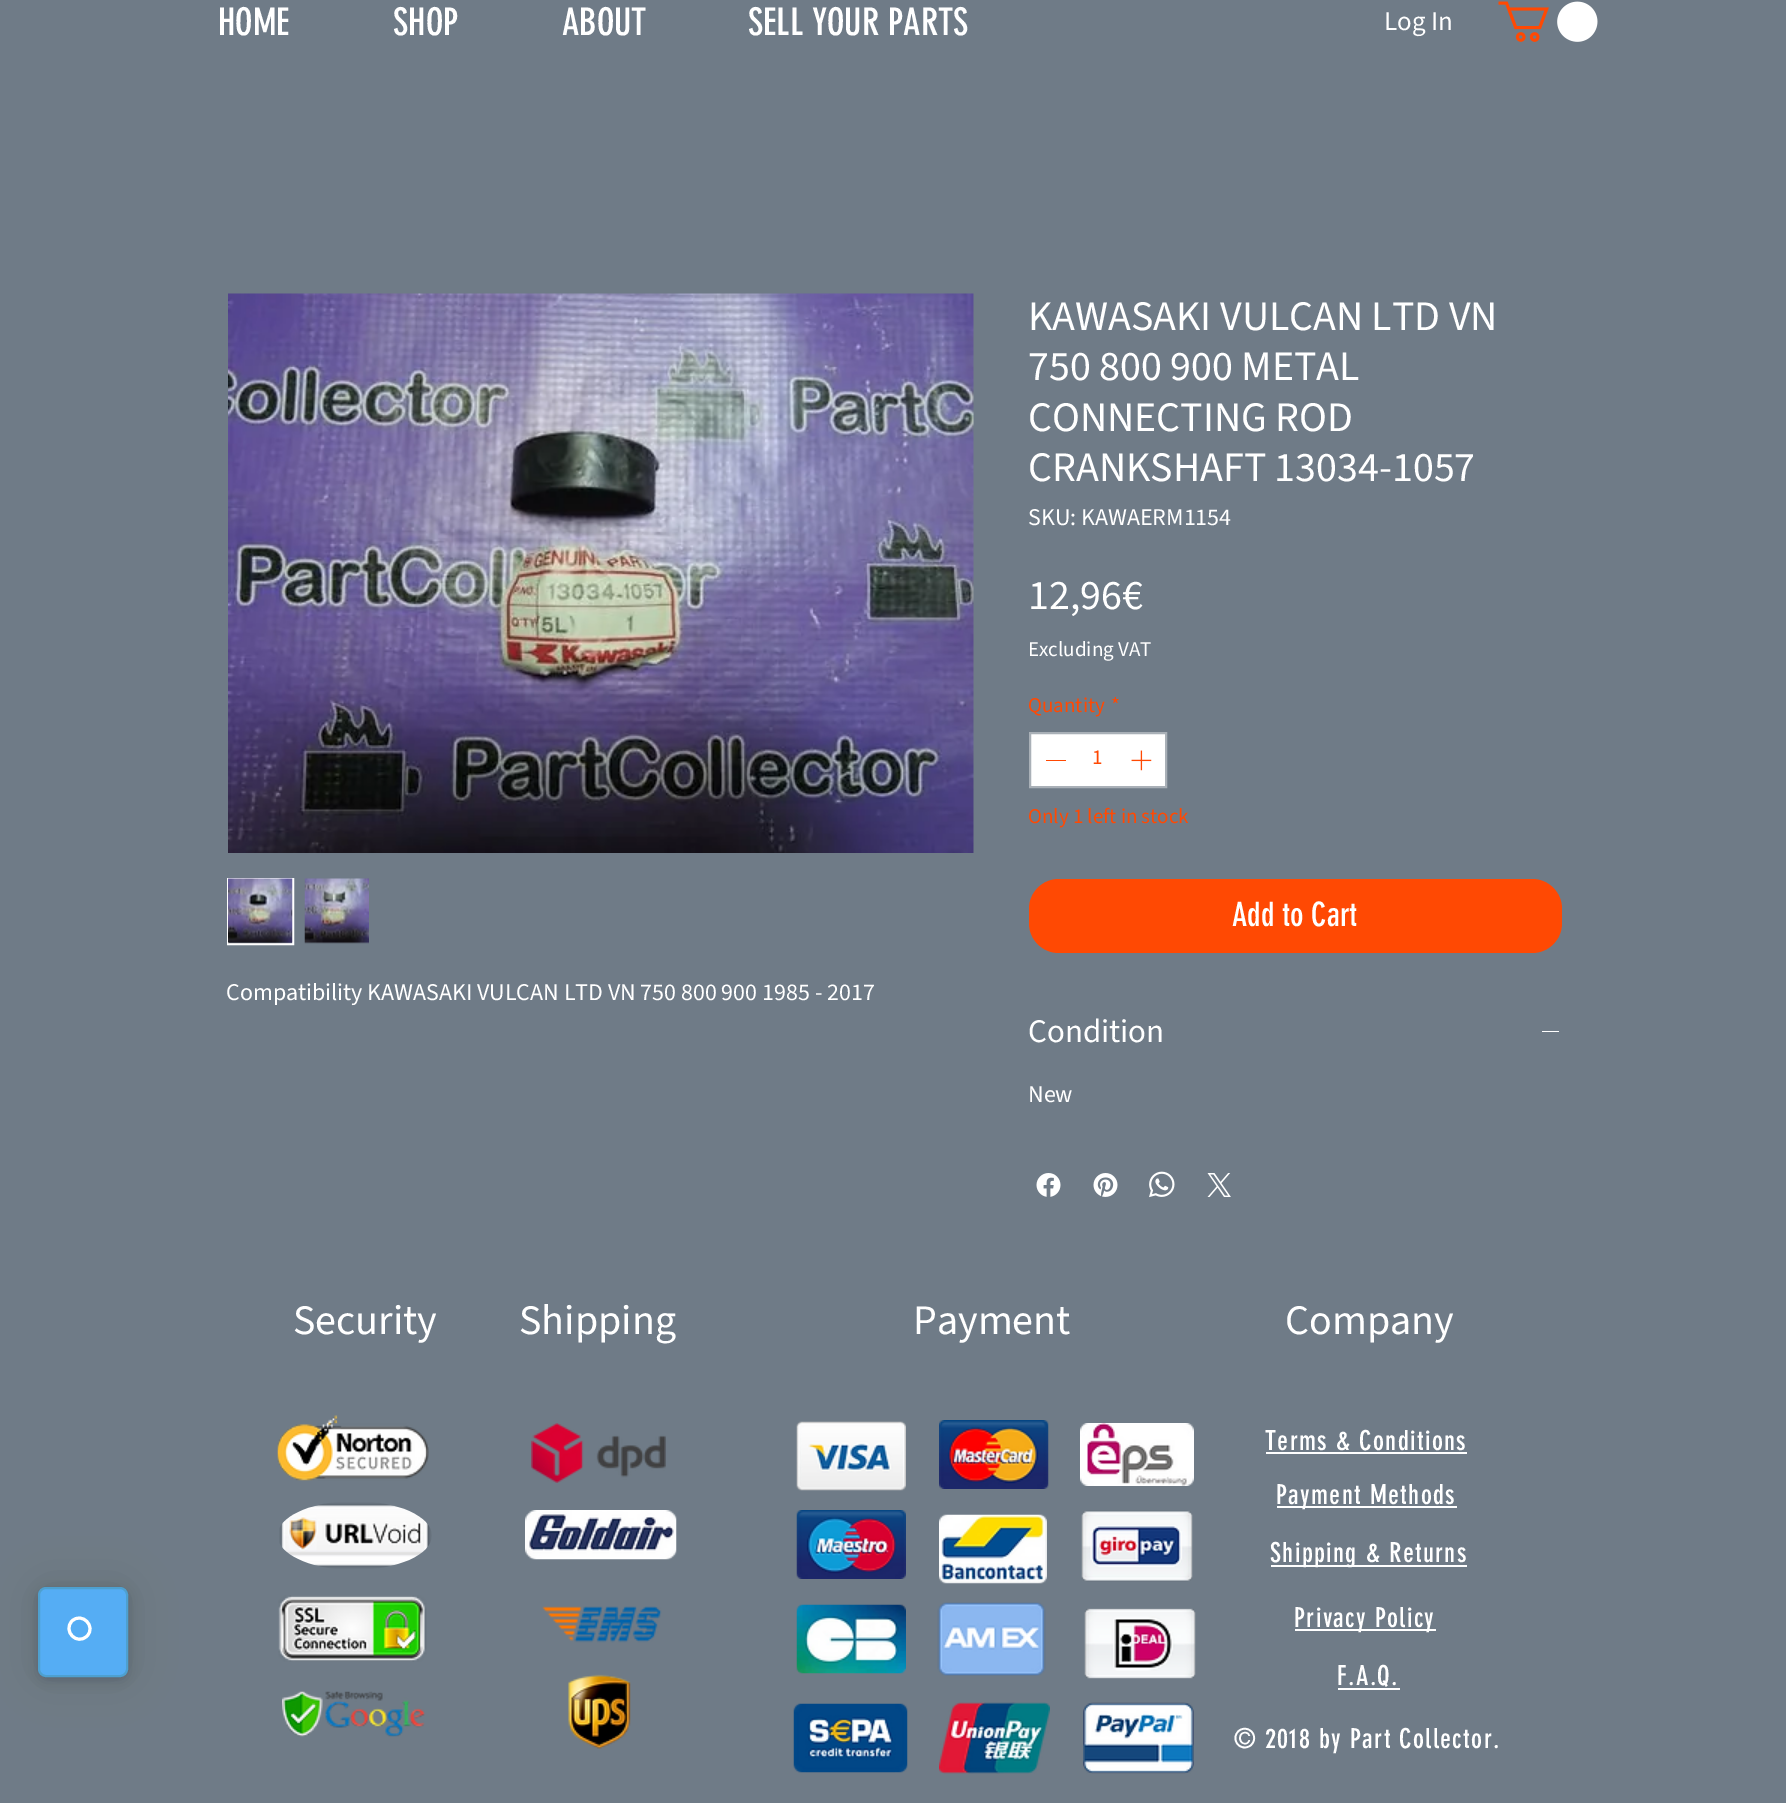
%!PS
<< /PageSize [1786 1803] /PageUsesTransparency true >> setpagedevice
/rgb { 3 { 255 div 3 1 roll } repeat setrgbcolor } def
/font { [ exch dup neg 0 0 3 -1 roll 0 0 ] selectfont } def
/alpha { dup .setfillconstantalpha .setstrokeconstantalpha } def
/roundrect { 5 dict begin { /r /h /w /y /x } { exch def } forall
  x r add y moveto x w add y 2 copy h add r arct x w add y h add x 1 index r arct
  x y h add x y r arct x y 2 copy exch w add exch r arct closepath end } def
/shadow { 12 dict begin { /a /b /q /h /w /y /x } { exch def } forall gsave /was 0 def
  9 -2 -9 { dup b mul 4 div /e exch def 1 sub .425 mul 2.718 exch exp 1 add a .99 .min exch div /now exch def
    1 1 now sub 1 was sub div sub alpha /was now def
    w h .min e 2 mul add 0 gt { x e sub y e sub w e 2 mul add h e 2 mul add
      q e add b .6 mul add w h .min 2 div e add .min 0 .max roundrect fill } if } for grestore end } def
/picture { 5 dict begin { /h /w /y /x /name } { exch def } forall
  gsave x y translate w h scale
  w h 8 [w 0 0 h 0 0] name (r) file false 3 colorimage grestore end } def
0 .pushpdf14devicefilter
0 1803 translate 1 -1 scale
4 setmiterlimit
111 123 135 rgb
0 0 1786 1803 rectfill
0 0 0 rgb
38 1590 90 90 8 6 0.15 shadow
38 1587 90 90 8 22.5 0.1 shadow
85 173 244 rgb
39 1588 88 88 7 roundrect gsave fill grestore
78 160 207 rgb
2 setlinewidth
stroke
255 255 255 rgb
3 setlinewidth
72 1621 moveto 82 1611.5 96.5 1626.5 87 1636 curveto 77 1646 62.5 1631 72 1621 curveto closepath stroke
(img/1.rgb) 1498 1 100 41 picture
(img/2.rgb) 228 293 746 560 picture
2 setlinewidth
228 879 65 65 rectstroke
(img/3.rgb) 228 878 65 66 picture
(img/4.rgb) 304 878 65 66 picture
1030 733 moveto 1166 733 lineto 1166 787 lineto 1030 787 lineto closepath gsave fill grestore
169 176 183 rgb
stroke
255 73 3 rgb
1046 760 20 1 rectfill
(img/5.rgb) 1131 750 21 21 picture
1029 879 533 74 30 roundrect fill
255 255 255 rgb
1542 1031 17 1 rectfill
(img/6.rgb) 1036 1173 25 24 picture
(img/7.rgb) 1093 1173 25 24 picture
(img/8.rgb) 1149 1171 26 27 picture
(img/9.rgb) 1207 1173 24 24 picture
(img/10.rgb) 277 1415 152 66 picture
(img/11.rgb) 531 1423 135 60 picture
(img/12.rgb) 796 1421 110 70 picture
(img/13.rgb) 939 1420 110 69 picture
(img/14.rgb) 1080 1423 114 63 picture
1266 1452 201 2 rectfill
1277 1506 180 2 rectfill
(img/15.rgb) 279 1502 153 67 picture
(img/16.rgb) 525 1510 152 50 picture
(img/17.rgb) 796 1510 110 69 picture
(img/18.rgb) 939 1514 108 70 picture
(img/19.rgb) 1081 1510 112 72 picture
1271 1565 196 2 rectfill
(img/20.rgb) 278 1595 149 67 picture
(img/21.rgb) 542 1606 120 37 picture
(img/22.rgb) 796 1604 110 70 picture
(img/23.rgb) 937 1602 109 74 picture
(img/24.rgb) 1084 1608 112 71 picture
1295 1629 141 2 rectfill
(img/25.rgb) 282 1691 143 46 picture
(img/26.rgb) 568 1674 63 75 picture
(img/27.rgb) 793 1703 115 70 picture
(img/28.rgb) 939 1702 111 72 picture
(img/29.rgb) 1083 1702 111 72 picture
1338 1688 62 2 rectfill
/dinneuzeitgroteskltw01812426-Regular 37.5 font
[
  [(HOME) 218 35]
  [(SHOP) 393 35]
  [(ABOUT) 562 35]
  [(SELL YOUR PARTS) 748 35]
] { aload pop moveto show } forall
/SourceSans3-Regular 27 font
1384 30 moveto (Log In) show
/SourceSans3-Regular 24 font
226 1000 moveto (Compatibility KAWASAKI VULCAN LTD VN 750 800 900 1985 - 2017) show
/SourceSans3-Regular 42 font
[
  [(KAWASAKI VULCAN LTD VN) 1028 330]
  [(750 800 900 METAL) 1028 380]
  [(CONNECTING ROD) 1028 431]
  [(CRANKSHAFT 13034-1057) 1028 481]
] { aload pop moveto show } forall
/SourceSans3-Regular 24 font
1028 525 moveto (SKU: KAWAERM1154) show
/SourceSans3-Regular 42 font
1028 609 moveto (12,96€) show
/SourceSans3-Regular 21 font
1028 656 moveto (Excluding VAT) show
255 73 3 rgb
[
  [(Quantity) 1028 712]
  [(*) 1111 712]
  [(1) 1092 764]
  [(Only 1 left in stock) 1028 823]
] { aload pop moveto show } forall
/dinneuzeitgroteskltw01812426-Regular 33 font
255 255 255 rgb
1232 926 moveto (Add to Cart) show
/SourceSans3-Regular 33 font
1028 1042 moveto (Condition) show
/SourceSans3-Regular 24 font
1028 1102 moveto (New) show
/SourceSans3-Regular 42 font
[
  [(Security) 293 1334]
  [(Shipping) 519 1334]
  [(Payment) 913 1334]
  [(Company) 1285 1334]
] { aload pop moveto show } forall
/dinneuzeitgroteskltw01812426-Regular 27 font
1265 1450 moveto 1.35 0 (Terms & Conditions) ashow
1276 1504 moveto 1.35 0 (Payment Methods) ashow
1270 1562 moveto 1.35 0 (Shipping & Returns) ashow
1294 1627 moveto 1.35 0 (Privacy Policy) ashow
1337 1685 moveto 1.35 0 (F.A.Q.) ashow
1234 1748 moveto 1.35 0 (© 2018 by Part Collector.) ashow
.poppdf14devicefilter showpage
